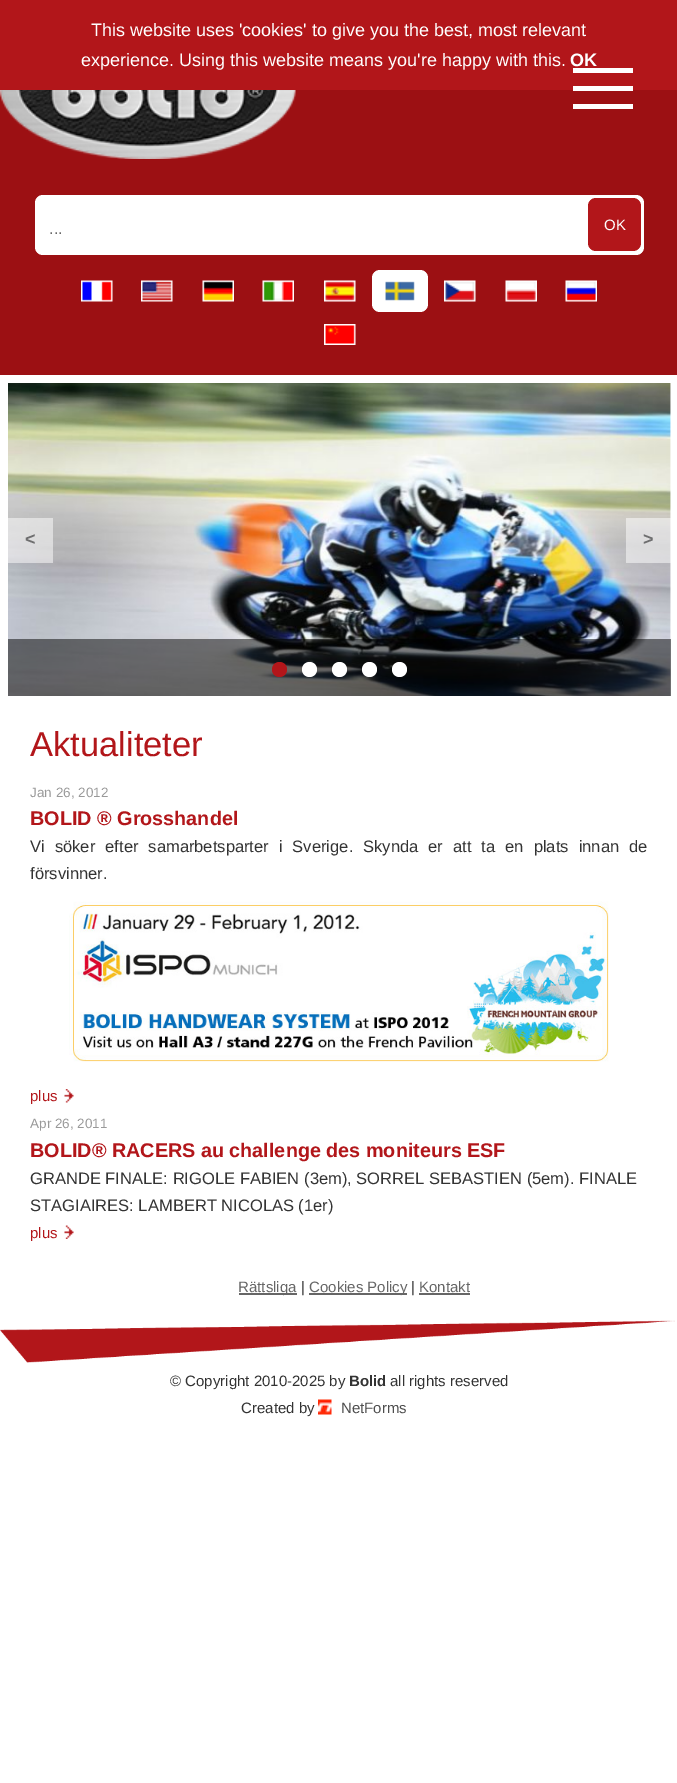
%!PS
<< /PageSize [677 1783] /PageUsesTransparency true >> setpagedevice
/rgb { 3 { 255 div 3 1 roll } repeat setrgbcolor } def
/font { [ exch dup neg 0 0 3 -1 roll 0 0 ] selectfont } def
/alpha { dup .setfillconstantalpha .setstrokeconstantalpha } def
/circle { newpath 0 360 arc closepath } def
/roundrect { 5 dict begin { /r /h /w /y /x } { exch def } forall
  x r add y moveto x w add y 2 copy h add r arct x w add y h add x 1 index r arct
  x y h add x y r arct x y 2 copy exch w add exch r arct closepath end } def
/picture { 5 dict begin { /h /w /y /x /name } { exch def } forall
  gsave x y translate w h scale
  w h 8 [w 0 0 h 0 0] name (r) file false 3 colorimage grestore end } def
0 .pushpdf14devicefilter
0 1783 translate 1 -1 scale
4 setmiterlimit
255 255 255 rgb
0 0 677 1783 rectfill
156 16 19 rgb
0 90 677 285 rectfill
178 22 26 rgb
0 0 677 90 rectfill
(img/1.rgb) 0 90 296 69 picture
[
  [573 68 60 5 255 255 255]
  [573 86 60 5 255 255 255]
  [573 104 60 5 255 255 255]
] { aload pop rgb rectfill } forall
35 195 609 60 8 roundrect fill
178 22 26 rgb
588 198 53 53 8 roundrect fill
(img/2.rgb) 81 280 32 22 picture
(img/3.rgb) 141 280 32 22 picture
(img/4.rgb) 202 280 32 22 picture
(img/5.rgb) 262 280 32 22 picture
(img/6.rgb) 324 280 32 22 picture
255 255 255 rgb
372 270 56 42 8 roundrect fill
(img/7.rgb) 385 281 30 20 picture
(img/8.rgb) 444 280 32 22 picture
(img/9.rgb) 505 280 32 22 picture
(img/10.rgb) 565 280 32 22 picture
(img/11.rgb) 324 324 32 21 picture
(img/12.rgb) 8 383 663 313 picture
0.5 alpha
[
  [8 518 45 45 255 255 255]
  [626 518 45 45 255 255 255]
  [8 639 663 57 0 0 0]
] { aload pop rgb rectfill } forall
1 alpha
178 22 26 rgb
279.5 669.5 7.5 circle fill
255 255 255 rgb
309.5 669.5 7.5 circle fill
339.5 669.5 7.5 circle fill
369.5 669.5 7.5 circle fill
399.5 669.5 7.5 circle fill
(img/13.rgb) 69 901 540 161 picture
(img/14.rgb) 64 1089 10 14 picture
(img/15.rgb) 64 1225 10 14 picture
[
  [239 1293 58 2 102 102 102]
  [309 1293 98 2 102 102 102]
  [419 1293 51 2 102 102 102]
] { aload pop rgb rectfill } forall
(img/16.rgb) 0 1320 675 43 picture
(img/17.rgb) 318 1399 14 16 picture
/LiberationSans-Regular 18 font
255 255 255 rgb
91 36 moveto (This website uses 'cookies' to give you the best, most relevant) show
81 66 moveto (experience. Using this website means you're happy with this.) show
/LiberationSans-Bold 18 font
570 66 moveto (OK) show
/LiberationSans-Regular 15 font
604 230 moveto (OK) show
/LiberationSans-Regular 16.55 font
102 102 102 rgb
49 234 moveto (...) show
/LiberationSans-Bold 18 font
110 110 111 rgb
25 545 moveto (<) show
643 545 moveto (>) show
/LiberationSans-Regular 34.5 font
178 22 26 rgb
30 756 moveto (Aktualiteter) show
/LiberationSans-Regular 13.5 font
153 153 153 rgb
30 797 moveto (Jan 26, 2012) show
/LiberationSans-Bold 19.8 font
178 22 26 rgb
30 825 moveto (BOLID ® Grosshandel) show
/LiberationSans-Regular 16.55 font
51 51 51 rgb
30 852 moveto 5.4 0 32 (Vi söker efter samarbetsparter i Sverige. Skynda er att ta en plats innan de) widthshow
30 879 moveto (försvinner.) show
/LiberationSans-Regular 15 font
178 22 26 rgb
30 1101 moveto (plus) show
/LiberationSans-Regular 13.5 font
153 153 153 rgb
30 1128 moveto (Apr 26, 2011) show
/LiberationSans-Bold 19.8 font
178 22 26 rgb
30 1157 moveto (BOLID® RACERS au challenge des moniteurs ESF) show
/LiberationSans-Regular 16.55 font
51 51 51 rgb
30 1184 moveto (GRANDE FINALE: RIGOLE FABIEN \(3em\), SORREL SEBASTIEN \(5em\). FINALE) show
30 1211 moveto (STAGIAIRES: LAMBERT NICOLAS \(1er\)) show
/LiberationSans-Regular 15 font
178 22 26 rgb
30 1238 moveto (plus) show
102 102 102 rgb
238 1292 moveto (Rättsliga) show
51 51 51 rgb
301 1292 moveto (|) show
102 102 102 rgb
309 1292 moveto (Cookies Policy) show
51 51 51 rgb
411 1292 moveto (|) show
102 102 102 rgb
419 1292 moveto (Kontakt) show
51 51 51 rgb
170 1386 moveto (© Copyright 2010-2025 by) show
/LiberationSans-Bold 15 font
349 1386 moveto (Bolid) show
/LiberationSans-Regular 15 font
390 1386 moveto (all rights reserved) show
241 1413 moveto (Created by) show
78 78 78 rgb
341 1413 moveto (NetForms) show
.poppdf14devicefilter showpage
